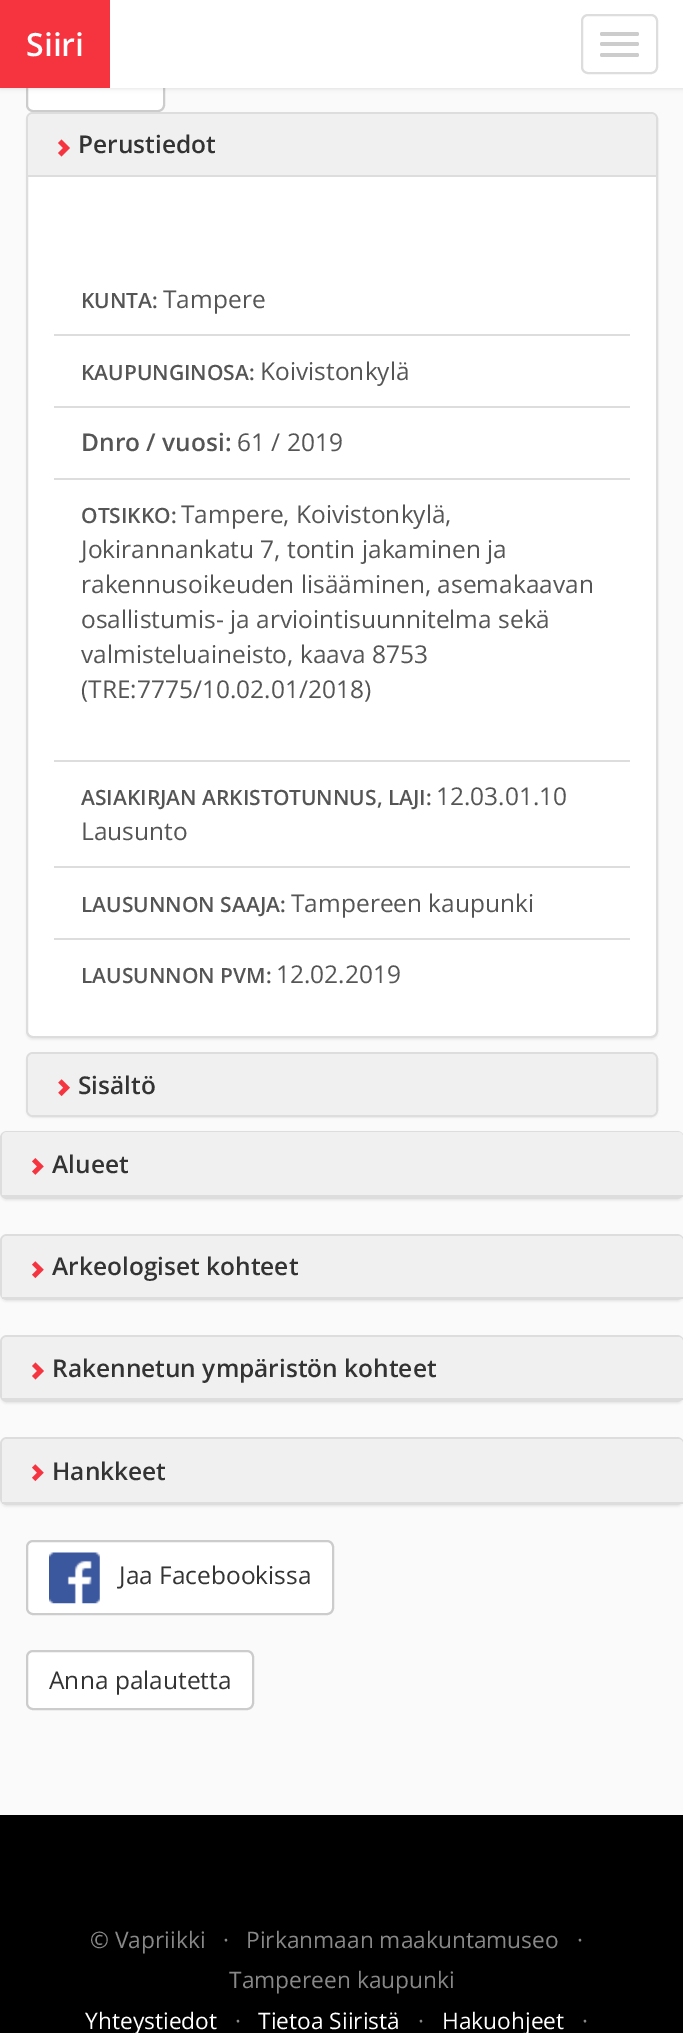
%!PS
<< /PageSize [683 2033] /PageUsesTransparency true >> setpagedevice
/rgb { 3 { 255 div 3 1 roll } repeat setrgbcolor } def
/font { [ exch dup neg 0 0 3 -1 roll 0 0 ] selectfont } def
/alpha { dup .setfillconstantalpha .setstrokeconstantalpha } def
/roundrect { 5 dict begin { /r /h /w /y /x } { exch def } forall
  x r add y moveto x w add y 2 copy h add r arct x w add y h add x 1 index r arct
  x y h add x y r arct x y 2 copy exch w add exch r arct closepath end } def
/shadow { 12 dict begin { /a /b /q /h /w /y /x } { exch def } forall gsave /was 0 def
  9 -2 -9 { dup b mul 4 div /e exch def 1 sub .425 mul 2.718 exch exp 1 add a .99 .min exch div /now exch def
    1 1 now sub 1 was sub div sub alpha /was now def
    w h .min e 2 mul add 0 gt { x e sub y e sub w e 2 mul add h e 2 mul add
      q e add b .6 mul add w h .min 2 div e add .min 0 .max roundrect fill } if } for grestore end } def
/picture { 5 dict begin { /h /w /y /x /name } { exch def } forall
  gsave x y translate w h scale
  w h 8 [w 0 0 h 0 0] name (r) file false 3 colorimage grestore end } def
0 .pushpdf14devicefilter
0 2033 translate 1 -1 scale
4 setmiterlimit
250 250 250 rgb
0 0 683 2033 rectfill
255 255 255 rgb
27 54 137 57 6 roundrect gsave fill grestore
204 204 204 rgb
2 setlinewidth
stroke
0 0 0 rgb
0 2 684 87 0 2 0.1 shadow
255 255 255 rgb
110 0 573 88 rectfill
246 52 64 rgb
0 0 110 88 rectfill
221 221 221 rgb
582 15 75 58 6 roundrect stroke
204 204 204 rgb
600 32 39 4 2 roundrect fill
600 42 39 4 2 roundrect fill
600 53 39 4 2 roundrect fill
0 0 0 rgb
26 114 632 926 7 1 0.05 shadow
255 255 255 rgb
27 113 630 924 6 roundrect gsave fill grestore
221 221 221 rgb
stroke
240 240 240 rgb
33 114 moveto 651 114 lineto 654 114 656 116 656 119 curveto 656 175 lineto 28 175 lineto 28 119 lineto 28 116 30 114 33 114 curveto closepath fill
246 52 64 rgb
61.5 156.5 moveto 58 153 lineto 63 148 lineto 58 143 lineto 61.5 139.5 lineto 70 148 lineto closepath fill
[
  [28 175 628 2 221 221 221]
  [54 334 576 2 221 221 221]
  [54 406 576 2 221 221 221]
  [54 478 576 2 221 221 221]
  [54 760 576 2 221 221 221]
  [54 866 576 2 221 221 221]
  [54 938 576 2 221 221 221]
] { aload pop rgb rectfill } forall
0 0 0 rgb
26 1054 632 64 7 1 0.05 shadow
221 221 221 rgb
27 1053 630 63 6 roundrect stroke
240 240 240 rgb
28 1054 628 61 5 roundrect fill
(img/1.rgb) 58 1079 12 18 picture
0 0 0 rgb
0 1132 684 69 7 1 0.05 shadow
221 221 221 rgb
1 1132 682 66 6 roundrect stroke
240 240 240 rgb
7 1132 moveto 678 1132 lineto 681 1132 683 1134 683 1137 curveto 683 1197 lineto 2 1197 lineto 2 1137 lineto 2 1134 4 1132 7 1132 curveto closepath fill
221 221 221 rgb
2 1195 681 2 rectfill
(img/2.rgb) 32 1158 12 17 picture
0 0 0 rgb
0 1236 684 66 7 1 0.05 shadow
221 221 221 rgb
1 1235 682 64 6 roundrect stroke
240 240 240 rgb
7 1236 moveto 678 1236 lineto 681 1236 683 1238 683 1241 curveto 683 1299 lineto 2 1299 lineto 2 1241 lineto 2 1238 4 1236 7 1236 curveto closepath fill
221 221 221 rgb
2 1297 681 2 rectfill
(img/3.rgb) 32 1261 12 18 picture
0 0 0 rgb
0 1337 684 67 7 1 0.05 shadow
221 221 221 rgb
1 1336 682 65 6 roundrect stroke
240 240 240 rgb
7 1337 moveto 678 1337 lineto 681 1337 683 1339 683 1342 curveto 683 1400 lineto 2 1400 lineto 2 1342 lineto 2 1339 4 1337 7 1337 curveto closepath fill
221 221 221 rgb
2 1398 681 2 rectfill
246 52 64 rgb
35.5 1379.5 moveto 32 1376 lineto 37 1371 lineto 32 1366 lineto 35.5 1362.5 lineto 44 1371 lineto closepath fill
0 0 0 rgb
0 1439 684 68 7 1 0.05 shadow
221 221 221 rgb
1 1438 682 66 6 roundrect stroke
240 240 240 rgb
7 1439 moveto 678 1439 lineto 681 1439 683 1441 683 1444 curveto 683 1503 lineto 2 1503 lineto 2 1444 lineto 2 1441 4 1439 7 1439 curveto closepath fill
221 221 221 rgb
2 1502 681 2 rectfill
(img/3.rgb) 32 1464 12 18 picture
255 255 255 rgb
27 1541 306 73 6 roundrect gsave fill grestore
204 204 204 rgb
stroke
(img/4.rgb) 49 1552 51 52 picture
255 255 255 rgb
27 1651 226 58 6 roundrect gsave fill grestore
204 204 204 rgb
stroke
0 0 0 rgb
0 1815 683 218 rectfill
/OpenSans-SemiBold 32 font
255 255 255 rgb
26 56 moveto (Siiri) show
/OpenSans-SemiBold 24.5 font
51 51 51 rgb
78 153 moveto (Perustiedot) show
/OpenSans-SemiBold 21 font
85 85 85 rgb
81 308 moveto (KUNTA:) show
/OpenSans-Regular 24.5 font
163 308 moveto (Tampere) show
/OpenSans-SemiBold 21 font
81 380 moveto (KAUPUNGINOSA:) show
/OpenSans-Regular 24.5 font
260 380 moveto (Koivistonkylä) show
/OpenSans-SemiBold 24.5 font
81 451 moveto (Dnro / vuosi:) show
/OpenSans-Regular 24.5 font
237 451 moveto (61 / 2019) show
/OpenSans-SemiBold 21 font
81 523 moveto (OTSIKKO:) show
/OpenSans-Regular 24.5 font
[
  [(Tampere, Koivistonkylä,) 181 523]
  [(Jokirannankatu 7, tontin jakaminen ja) 81 558]
  [(rakennusoikeuden lisääminen, asemakaavan) 81 593]
  [(osallistumis- ja arviointisuunnitelma sekä) 81 628]
  [(valmisteluaineisto, kaava 8753) 81 663]
  [(\(TRE:7775/10.02.01/2018\)) 81 698]
] { aload pop moveto show } forall
/OpenSans-SemiBold 21 font
81 805 moveto (ASIAKIRJAN ARKISTOTUNNUS, LAJI:) show
/OpenSans-Regular 24.5 font
436 805 moveto (12.03.01.10) show
81 840 moveto (Lausunto) show
/OpenSans-SemiBold 21 font
81 912 moveto (LAUSUNNON SAAJA:) show
/OpenSans-Regular 24.5 font
291 912 moveto (Tampereen kaupunki) show
/OpenSans-SemiBold 21 font
81 983 moveto (LAUSUNNON PVM:) show
/OpenSans-Regular 24.5 font
276 983 moveto (12.02.2019) show
/OpenSans-SemiBold 24.5 font
51 51 51 rgb
[
  [(Sisältö) 78 1094]
  [(Alueet) 52 1173]
  [(Arkeologiset kohteet) 52 1275]
  [(Rakennetun ympäristön kohteet) 52 1377]
  [(Hankkeet) 52 1480]
] { aload pop moveto show } forall
/OpenSans-Regular 24.5 font
119 1584 moveto (Jaa Facebookissa) show
49 1689 moveto (Anna palautetta) show
/OpenSans-Regular 22.75 font
136 136 136 rgb
[
  [(© Vapriikki) 90 1948]
  [(·) 223 1948]
  [(Pirkanmaan maakuntamuseo) 246 1948]
  [(·) 577 1948]
  [(Tampereen kaupunki) 229 1988]
] { aload pop moveto show } forall
255 255 255 rgb
85 2029 moveto (Yhteystiedot) show
136 136 136 rgb
235 2029 moveto (·) show
255 255 255 rgb
258 2029 moveto (Tietoa Siiristä) show
136 136 136 rgb
418 2029 moveto (·) show
255 255 255 rgb
442 2029 moveto (Hakuohjeet) show
136 136 136 rgb
582 2029 moveto (·) show
.poppdf14devicefilter showpage
